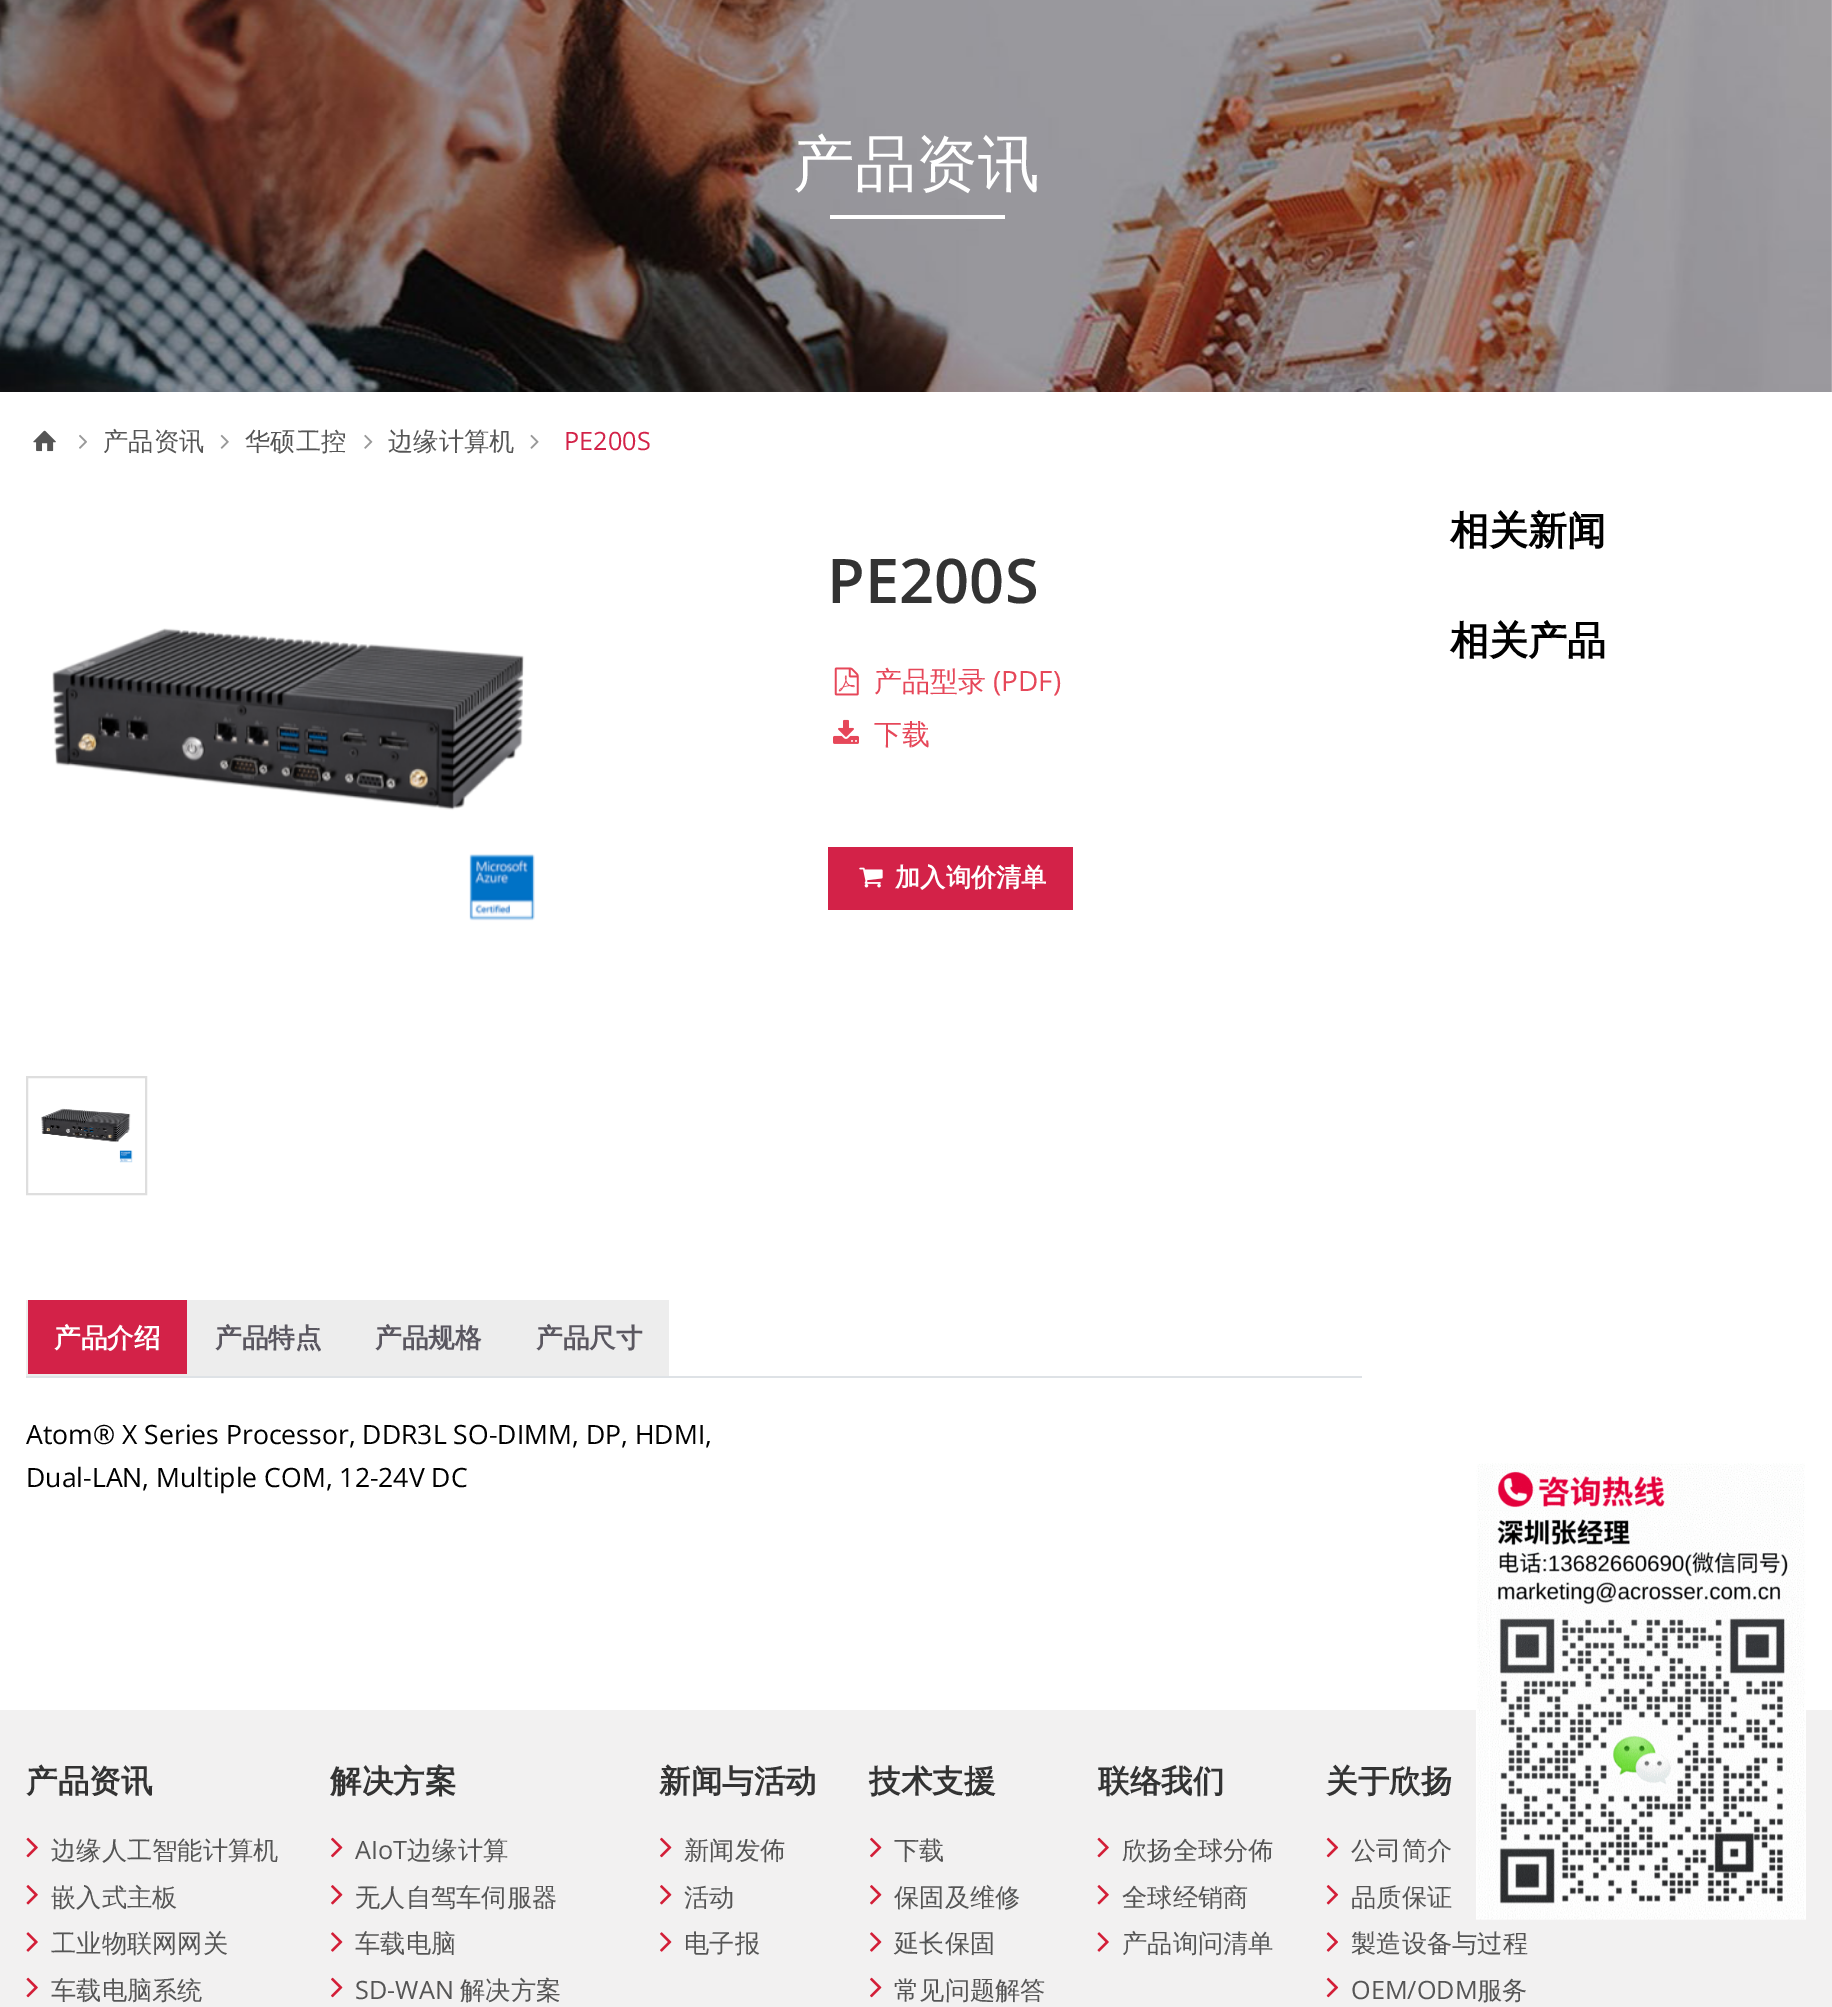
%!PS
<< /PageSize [1832 2007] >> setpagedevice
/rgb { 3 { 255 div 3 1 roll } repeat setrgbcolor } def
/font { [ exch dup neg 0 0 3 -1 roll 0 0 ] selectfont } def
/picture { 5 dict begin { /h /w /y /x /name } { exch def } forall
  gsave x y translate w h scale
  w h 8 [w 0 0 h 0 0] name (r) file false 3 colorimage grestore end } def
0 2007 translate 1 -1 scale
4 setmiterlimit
255 255 255 rgb
0 0 1832 2007 rectfill
(img/1.rgb) 0 0 1832 392 picture
830 215 175 4 rectfill
(img/2.rgb) 33 430 23 22 picture
(img/3.rgb) 79 434 8 15 picture
(img/4.rgb) 220 434 9 15 picture
(img/5.rgb) 364 434 9 15 picture
(img/6.rgb) 530 434 9 15 picture
(img/7.rgb) 52 628 483 293 picture
222 222 222 rgb
2 setlinewidth
27 1077 119 117 rectstroke
(img/8.rgb) 41 1108 92 55 picture
(img/9.rgb) 834 667 25 29 picture
(img/10.rgb) 833 719 26 25 picture
211 34 72 rgb
828 847 245 63 rectfill
(img/11.rgb) 859 867 24 21 picture
[
  [26 1376 1336 2 222 226 230]
  [26 1374 643 2 237 237 237]
  [26 1300 2 76 237 237 237]
  [28 1300 159 74 211 34 72]
  [187 1300 2 76 237 237 237]
  [189 1300 159 74 237 237 237]
  [348 1300 2 76 237 237 237]
  [350 1300 158 74 237 237 237]
  [508 1300 2 76 237 237 237]
  [510 1300 159 74 237 237 237]
  [0 1710 1832 297 242 241 241]
] { aload pop rgb rectfill } forall
(img/12.rgb) 26 1837 12 21 picture
(img/13.rgb) 26 1885 12 20 picture
(img/14.rgb) 26 1932 12 20 picture
(img/12.rgb) 26 1977 12 21 picture
(img/15.rgb) 331 1837 12 21 picture
(img/16.rgb) 331 1885 12 20 picture
(img/17.rgb) 331 1932 12 20 picture
(img/15.rgb) 331 1977 12 21 picture
(img/15.rgb) 660 1837 12 21 picture
(img/16.rgb) 660 1885 12 20 picture
(img/17.rgb) 660 1932 12 20 picture
(img/15.rgb) 870 1837 12 21 picture
(img/16.rgb) 870 1885 12 20 picture
(img/17.rgb) 870 1932 12 20 picture
(img/15.rgb) 870 1977 12 21 picture
(img/12.rgb) 1097 1837 12 21 picture
(img/13.rgb) 1097 1885 12 20 picture
(img/14.rgb) 1097 1932 12 20 picture
(img/18.rgb) 1326 1837 13 21 picture
(img/19.rgb) 1326 1885 13 20 picture
(img/20.rgb) 1326 1932 12 20 picture
(img/18.rgb) 1326 1977 13 21 picture
(img/21.rgb) 1476 1463 330 457 picture
/WenQuanYiZenHei-Medium 61.5 font
255 255 255 rgb
793 185 moveto (产品资讯) show
/WenQuanYiZenHei-Medium 25.25 font
85 85 85 rgb
[
  [(产品资讯) 103 450]
  [(华硕工控) 245 450]
  [(边缘计算机) 388 450]
] { aload pop moveto show } forall
/OpenSans-Regular 25.25 font
211 34 72 rgb
564 450 moveto (PE200S) show
/OpenSans-SemiBold 61.5 font
51 51 51 rgb
827 603 moveto (PE200S) show
/WenQuanYiZenHei-Medium 28 font
230 71 89 rgb
874 691 moveto (产品型录) show
/OpenSans-Regular 28 font
993 691 moveto (\(PDF\)) show
/WenQuanYiZenHei-Medium 28 font
874 744 moveto (下载) show
/WenQuanYiZenHei-Bold 25.25 font
255 255 255 rgb
895 886 moveto (加入询价清单) show
/WenQuanYiZenHei-Bold 26.6 font
54 1347 moveto (产品介绍) show
90 87 96 rgb
[
  [(产品特点) 215 1347]
  [(产品规格) 375 1347]
  [(产品尺寸) 536 1347]
] { aload pop moveto show } forall
/OpenSans-Regular 26.6 font
0 0 0 rgb
26 1444 moveto (Atom® X Series Processor, DDR3L SO-DIMM, DP, HDMI,) show
26 1487 moveto (Dual-LAN, Multiple COM, 12-24V DC) show
/WenQuanYiZenHei-Bold 39 font
1450 544 moveto (相关新闻) show
1450 654 moveto (相关产品) show
/WenQuanYiZenHei-Bold 31.5 font
51 51 51 rgb
26 1792 moveto (产品资讯) show
/WenQuanYiZenHei-Medium 25.25 font
85 85 85 rgb
[
  [(边缘人工智能计算机) 51 1859]
  [(嵌入式主板) 51 1906]
  [(工业物联网网关) 51 1952]
  [(车载电脑系统) 51 1999]
] { aload pop moveto show } forall
/WenQuanYiZenHei-Bold 31.5 font
51 51 51 rgb
330 1792 moveto (解决方案) show
/OpenSans-Regular 25.25 font
85 85 85 rgb
355 1859 moveto (AIoT) show
/WenQuanYiZenHei-Medium 25.25 font
[
  [(边缘计算) 407 1859]
  [(无人自驾车伺服器) 355 1906]
  [(车载电脑) 355 1952]
] { aload pop moveto show } forall
/OpenSans-Regular 25.25 font
355 1999 moveto (SD-WAN) show
/WenQuanYiZenHei-Medium 25.25 font
460 1999 moveto (解决方案) show
/WenQuanYiZenHei-Bold 31.5 font
51 51 51 rgb
659 1792 moveto (新闻与活动) show
/WenQuanYiZenHei-Medium 25.25 font
85 85 85 rgb
[
  [(新闻发佈) 684 1859]
  [(活动) 684 1906]
  [(电子报) 684 1952]
] { aload pop moveto show } forall
/WenQuanYiZenHei-Bold 31.5 font
51 51 51 rgb
869 1792 moveto (技术支援) show
/WenQuanYiZenHei-Medium 25.25 font
85 85 85 rgb
[
  [(下载) 894 1859]
  [(保固及维修) 894 1906]
  [(延长保固) 894 1952]
  [(常见问题解答) 894 1999]
] { aload pop moveto show } forall
/WenQuanYiZenHei-Bold 31.5 font
51 51 51 rgb
1098 1792 moveto (联络我们) show
/WenQuanYiZenHei-Medium 25.25 font
85 85 85 rgb
[
  [(欣扬全球分佈) 1122 1859]
  [(全球经销商) 1122 1906]
  [(产品询问清单) 1122 1952]
] { aload pop moveto show } forall
/WenQuanYiZenHei-Bold 31.5 font
51 51 51 rgb
1326 1792 moveto (关于欣扬) show
/WenQuanYiZenHei-Medium 25.25 font
85 85 85 rgb
[
  [(公司简介) 1351 1859]
  [(品质保证) 1351 1906]
  [(製造设备与过程) 1351 1952]
] { aload pop moveto show } forall
/OpenSans-Regular 25.25 font
1351 1999 moveto (OEM/ODM) show
/WenQuanYiZenHei-Medium 25.25 font
1477 1999 moveto (服务) show
showpage
